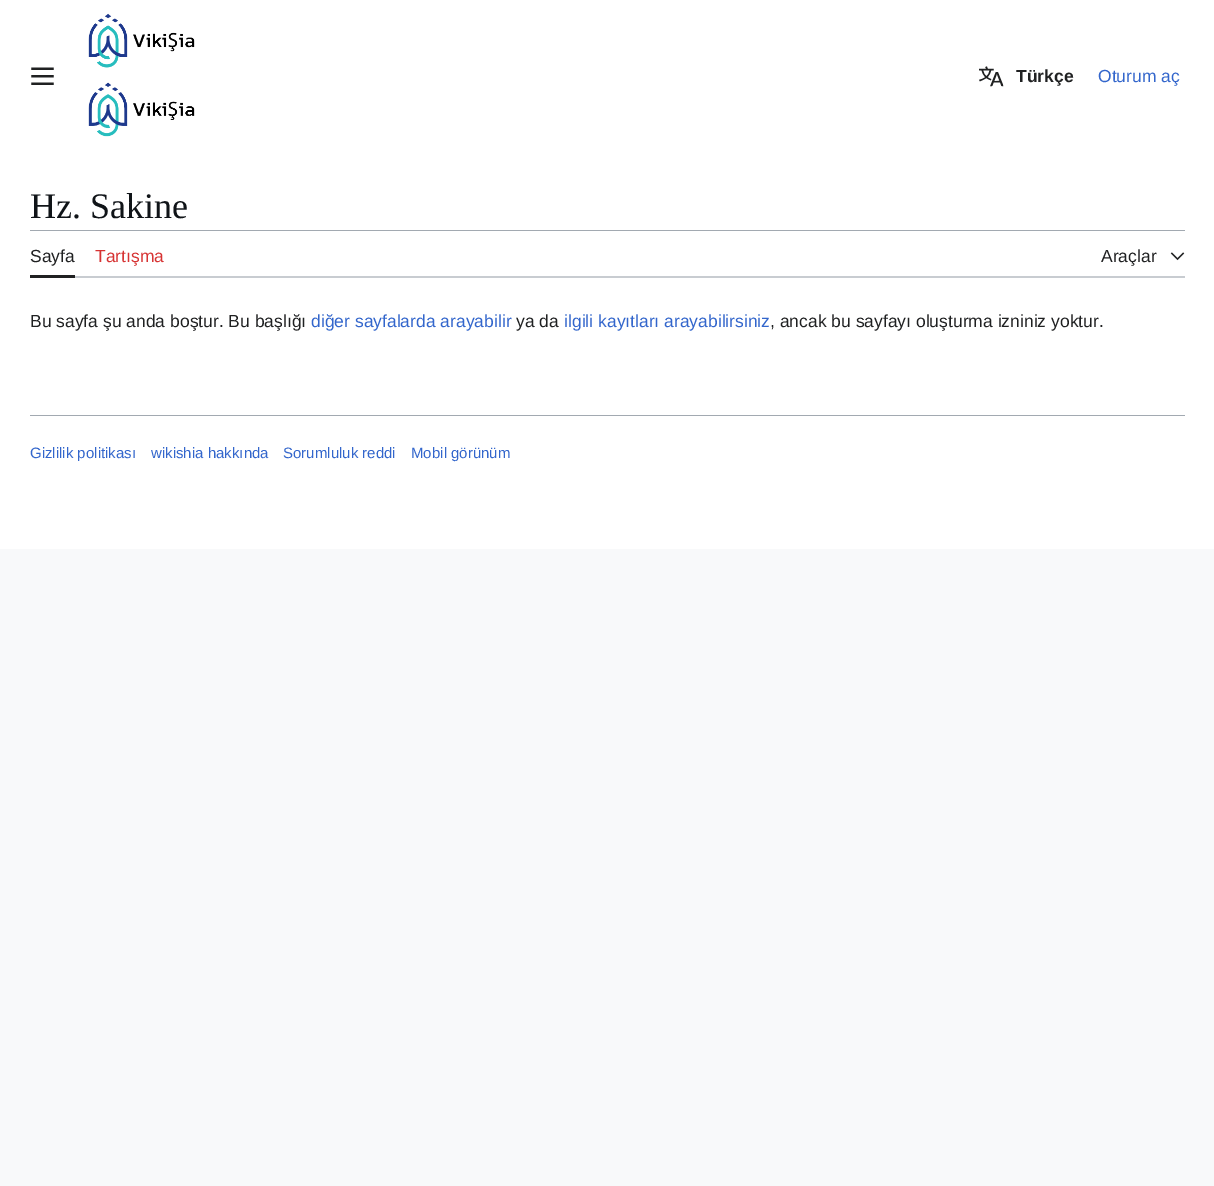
%!PS
<< /PageSize [1214 1186] >> setpagedevice
/rgb { 3 { 255 div 3 1 roll } repeat setrgbcolor } def
/font { [ exch dup neg 0 0 3 -1 roll 0 0 ] selectfont } def
/picture { 5 dict begin { /h /w /y /x /name } { exch def } forall
  gsave x y translate w h scale
  w h 8 [w 0 0 h 0 0] name (r) file false 3 colorimage grestore end } def
0 1186 translate 1 -1 scale
4 setmiterlimit
248 249 250 rgb
0 0 1214 1186 rectfill
255 255 255 rgb
0 0 1214 549 rectfill
(img/1.rgb) 31 67 23 18 picture
(img/2.rgb) 88 13 107 55 picture
(img/3.rgb) 88 82 107 55 picture
(img/4.rgb) 979 66 25 21 picture
[
  [30 230 1155 1 162 169 177]
  [75 276 1110 2 200 204 209]
  [30 275 45 3 32 33 34]
] { aload pop rgb rectfill } forall
(img/5.rgb) 1170 252 15 9 picture
162 169 177 rgb
30 415 1155 1 rectfill
/LiberationSans-Bold 17.5 font
32 33 34 rgb
1016 82 moveto (Türkçe) show
/LiberationSans-Regular 17.5 font
51 102 204 rgb
1098 82 moveto (Oturum aç) show
/LiberationSerif-Regular 36 font
16 20 24 rgb
30 218 moveto (Hz. Sakine) show
/LiberationSans-Regular 17.5 font
32 33 34 rgb
30 262 moveto (Sayfa) show
215 51 51 rgb
95 262 moveto (Tartışma) show
32 33 34 rgb
1101 262 moveto (Araçlar) show
30 327 moveto (Bu sayfa şu anda boştur. Bu başlığı) show
51 102 204 rgb
311 327 moveto (diğer sayfalarda arayabilir) show
32 33 34 rgb
516 327 moveto (ya da) show
51 102 204 rgb
564 327 moveto (ilgili kayıtları arayabilirsiniz) show
32 33 34 rgb
770 327 moveto (, ancak bu sayfayı oluşturma izniniz yoktur.) show
/LiberationSans-Regular 15 font
51 102 204 rgb
[
  [(Gizlilik politikası) 30 458]
  [(wikishia hakkında) 151 458]
  [(Sorumluluk reddi) 283 458]
  [(Mobil görünüm) 411 458]
] { aload pop moveto show } forall
showpage
